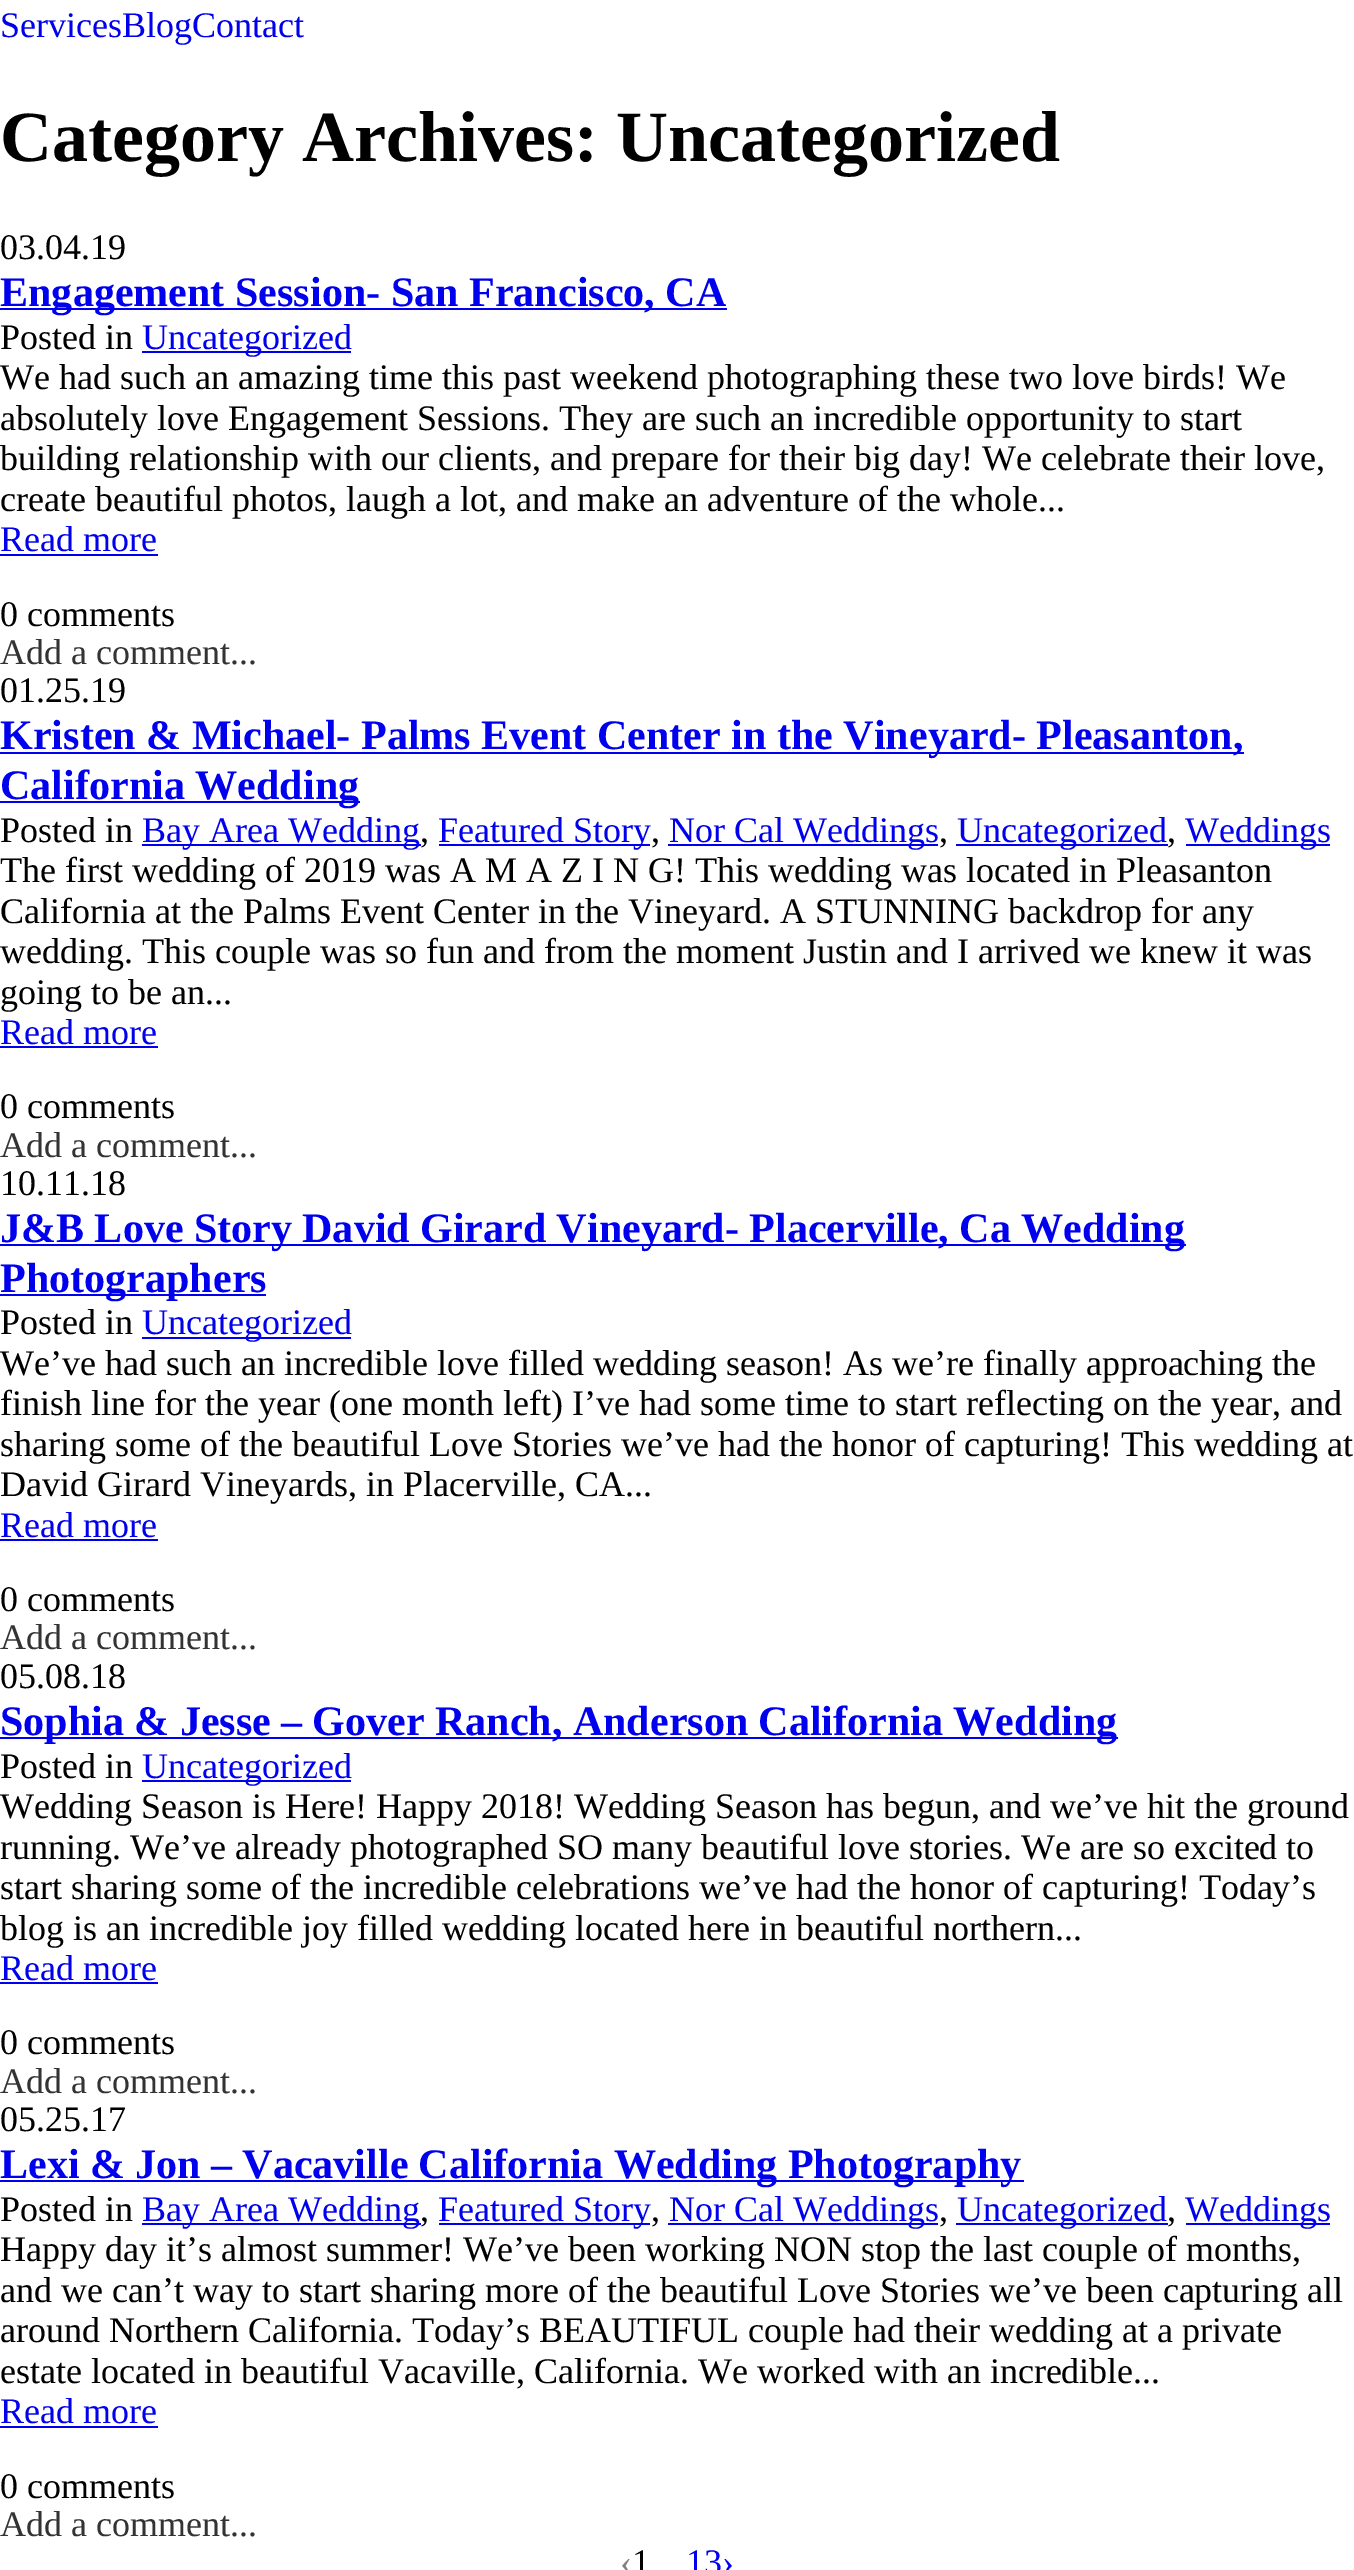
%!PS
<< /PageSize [1354 2570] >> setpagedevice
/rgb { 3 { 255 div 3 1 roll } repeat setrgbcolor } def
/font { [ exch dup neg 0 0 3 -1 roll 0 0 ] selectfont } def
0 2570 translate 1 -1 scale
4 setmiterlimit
255 255 255 rgb
0 0 1354 2570 rectfill
[
  [0 308 727 2 0 0 238]
  [142 351 209 2 0 0 238]
  [0 554 158 2 0 0 238]
  [0 752 1244 2 0 0 238]
  [0 801 360 2 0 0 238]
  [142 844 279 2 0 0 238]
  [439 844 211 2 0 0 238]
  [668 844 270 2 0 0 238]
  [956 844 212 2 0 0 238]
  [1186 844 144 2 0 0 238]
  [0 1046 158 2 0 0 238]
  [0 1244 1186 2 0 0 238]
  [0 1294 266 2 0 0 238]
  [142 1337 209 2 0 0 238]
  [0 1539 158 2 0 0 238]
  [0 1737 1118 2 0 0 238]
  [142 1780 209 2 0 0 238]
  [0 1982 158 2 0 0 238]
  [0 2180 1024 2 0 0 238]
  [142 2223 279 2 0 0 238]
  [439 2223 211 2 0 0 238]
  [668 2223 270 2 0 0 238]
  [956 2223 212 2 0 0 238]
  [1186 2223 144 2 0 0 238]
  [0 2426 158 2 0 0 238]
] { aload pop rgb rectfill } forall
/LiberationSerif-Regular 36 font
0 37 moveto (ServicesBlogContact) show
/LiberationSerif-Bold 72 font
0 0 0 rgb
0 161 moveto (Category Archives: Uncategorized) show
/LiberationSerif-Regular 36 font
0 259 moveto (03.04.19) show
/LiberationSerif-Bold 42.1 font
0 0 238 rgb
0 306 moveto (Engagement Session- San Francisco, CA) show
/LiberationSerif-Regular 36 font
0 0 0 rgb
0 349 moveto (Posted in) show
0 0 238 rgb
142 349 moveto (Uncategorized) show
0 0 0 rgb
[
  [(We had such an amazing time this past weekend photographing these two love birds! We) 0 389]
  [(absolutely love Engagement Sessions. They are such an incredible opportunity to start) 0 430]
  [(building relationship with our clients, and prepare for their big day! We celebrate their love,) 0 470]
  [(create beautiful photos, laugh a lot, and make an adventure of the whole...) 0 511]
] { aload pop moveto show } forall
0 0 238 rgb
0 551 moveto (Read more) show
0 0 0 rgb
0 626 moveto (0 comments) show
51 51 51 rgb
0 664 moveto (Add a comment...) show
0 0 0 rgb
0 702 moveto (01.25.19) show
/LiberationSerif-Bold 42.1 font
0 0 238 rgb
0 749 moveto -0.1 0 32 (Kristen & Michael- Palms Event Center in the Vineyard- Pleasanton,) widthshow
0 799 moveto (California Wedding) show
/LiberationSerif-Regular 36 font
0 0 0 rgb
0 842 moveto (Posted in) show
0 0 238 rgb
142 842 moveto (Bay Area Wedding) show
0 0 0 rgb
420 842 moveto (,) show
0 0 238 rgb
438 842 moveto (Featured Story) show
0 0 0 rgb
651 842 moveto (,) show
0 0 238 rgb
669 842 moveto (Nor Cal Weddings) show
0 0 0 rgb
939 842 moveto (,) show
0 0 238 rgb
957 842 moveto (Uncategorized) show
0 0 0 rgb
1167 842 moveto (,) show
0 0 238 rgb
1185 842 moveto (Weddings) show
0 0 0 rgb
[
  [(The first wedding of 2019 was A M A Z I N G! This wedding was located in Pleasanton) 0 882]
  [(California at the Palms Event Center in the Vineyard. A STUNNING backdrop for any) 0 923]
  [(wedding. This couple was so fun and from the moment Justin and I arrived we knew it was) 0 963]
  [(going to be an...) 0 1004]
] { aload pop moveto show } forall
0 0 238 rgb
0 1044 moveto (Read more) show
0 0 0 rgb
0 1118 moveto (0 comments) show
51 51 51 rgb
0 1157 moveto (Add a comment...) show
0 0 0 rgb
0 1195 moveto (10.11.18) show
/LiberationSerif-Bold 42.1 font
0 0 238 rgb
0 1242 moveto -0.25 0 32 (J&B Love Story David Girard Vineyard- Placerville, Ca Wedding) widthshow
0 1292 moveto (Photographers) show
/LiberationSerif-Regular 36 font
0 0 0 rgb
0 1334 moveto (Posted in) show
0 0 238 rgb
142 1334 moveto (Uncategorized) show
0 0 0 rgb
[
  [(We’ve had such an incredible love filled wedding season! As we’re finally approaching the) 0 1375]
  [(finish line for the year \(one month left\) I’ve had some time to start reflecting on the year, and) 0 1415]
  [(sharing some of the beautiful Love Stories we’ve had the honor of capturing! This wedding at) 0 1456]
  [(David Girard Vineyards, in Placerville, CA...) 0 1496]
] { aload pop moveto show } forall
0 0 238 rgb
0 1537 moveto (Read more) show
0 0 0 rgb
0 1611 moveto (0 comments) show
51 51 51 rgb
0 1649 moveto (Add a comment...) show
0 0 0 rgb
0 1688 moveto (05.08.18) show
/LiberationSerif-Bold 42.1 font
0 0 238 rgb
0 1735 moveto -0.25 0 32 (Sophia & Jesse – Gover Ranch, Anderson California Wedding) widthshow
/LiberationSerif-Regular 36 font
0 0 0 rgb
0 1778 moveto (Posted in) show
0 0 238 rgb
142 1778 moveto (Uncategorized) show
0 0 0 rgb
[
  [(Wedding Season is Here! Happy 2018! Wedding Season has begun, and we’ve hit the ground) 0 1818]
  [(running. We’ve already photographed SO many beautiful love stories. We are so excited to) 0 1859]
  [(start sharing some of the incredible celebrations we’ve had the honor of capturing! Today’s) 0 1899]
  [(blog is an incredible joy filled wedding located here in beautiful northern...) 0 1940]
] { aload pop moveto show } forall
0 0 238 rgb
0 1980 moveto (Read more) show
0 0 0 rgb
0 2054 moveto (0 comments) show
51 51 51 rgb
0 2093 moveto (Add a comment...) show
0 0 0 rgb
0 2131 moveto (05.25.17) show
/LiberationSerif-Bold 42.1 font
0 0 238 rgb
0 2178 moveto -0.25 0 32 (Lexi & Jon – Vacaville California Wedding Photography) widthshow
/LiberationSerif-Regular 36 font
0 0 0 rgb
0 2221 moveto (Posted in) show
0 0 238 rgb
142 2221 moveto (Bay Area Wedding) show
0 0 0 rgb
420 2221 moveto (,) show
0 0 238 rgb
438 2221 moveto (Featured Story) show
0 0 0 rgb
651 2221 moveto (,) show
0 0 238 rgb
669 2221 moveto (Nor Cal Weddings) show
0 0 0 rgb
939 2221 moveto (,) show
0 0 238 rgb
957 2221 moveto (Uncategorized) show
0 0 0 rgb
1167 2221 moveto (,) show
0 0 238 rgb
1185 2221 moveto (Weddings) show
0 0 0 rgb
[
  [(Happy day it’s almost summer! We’ve been working NON stop the last couple of months,) 0 2261]
  [(and we can’t way to start sharing more of the beautiful Love Stories we’ve been capturing all) 0 2302]
  [(around Northern California. Today’s BEAUTIFUL couple had their wedding at a private) 0 2342]
  [(estate located in beautiful Vacaville, California. We worked with an incredible...) 0 2383]
] { aload pop moveto show } forall
0 0 238 rgb
0 2423 moveto (Read more) show
0 0 0 rgb
0 2498 moveto (0 comments) show
51 51 51 rgb
0 2536 moveto (Add a comment...) show
128 128 128 rgb
620 2574 moveto (‹) show
0 0 0 rgb
632 2574 moveto (1) show
0 0 238 rgb
686 2574 moveto (13›) show
showpage
